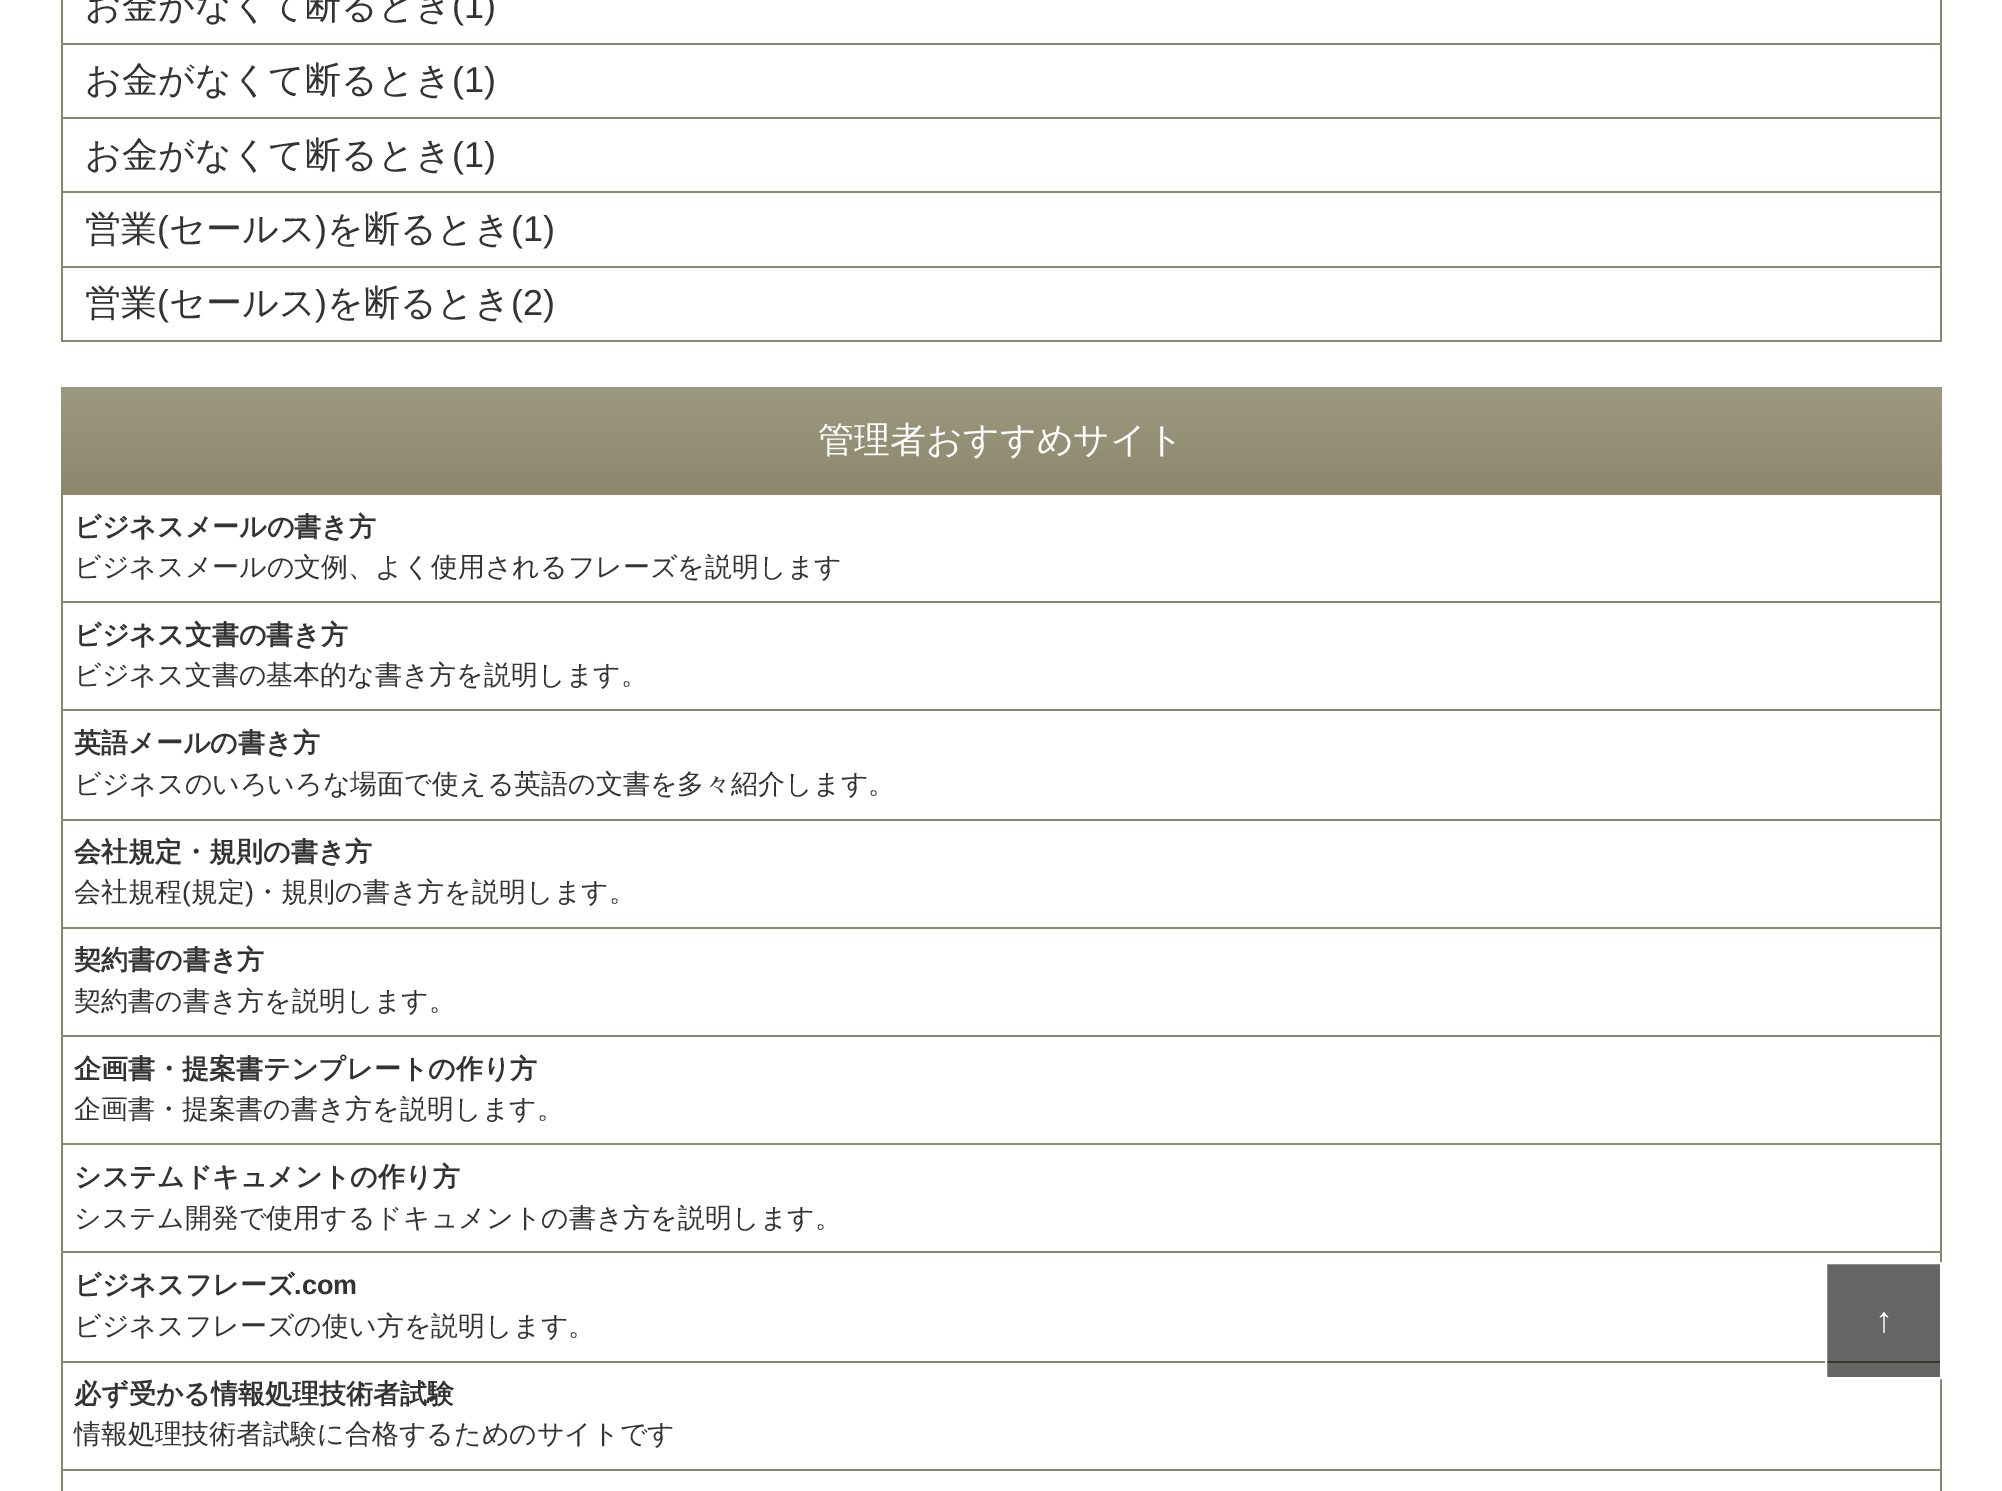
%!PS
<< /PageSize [2002 1491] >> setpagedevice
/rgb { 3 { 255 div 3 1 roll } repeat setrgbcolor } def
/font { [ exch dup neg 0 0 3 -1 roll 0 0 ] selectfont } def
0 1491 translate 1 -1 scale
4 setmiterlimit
255 255 255 rgb
0 0 2002 1491 rectfill
[
  [1827 1264 113 113 102 102 102]
  [1940 0 2 342 140 135 108]
  [61 43 1881 2 140 135 108]
  [61 0 2 45 140 135 108]
  [61 117 1881 2 140 135 108]
  [61 45 2 74 140 135 108]
  [61 191 1881 2 140 135 108]
  [61 119 2 75 140 135 108]
  [61 266 1881 2 140 135 108]
  [61 194 2 74 140 135 108]
  [61 340 1881 2 140 135 108]
  [61 268 2 74 140 135 108]
] { aload pop rgb rectfill } forall
gsave 61 387 moveto 1942 387 lineto 1942 495 lineto 61 495 lineto closepath clip newpath
<< /ShadingType 2 /ColorSpace /DeviceRGB /Coords [1001 387 1001 495] /Extend [true true] /Function << /FunctionType 2 /Domain [0 1] /C0 [0.616 0.6 0.502] /C1 [0.549 0.529 0.424] /N 1 >> >> shfill grestore
[
  [1940 495 2 767 140 135 108]
  [61 601 1881 2 140 135 108]
  [61 495 2 108 140 135 108]
  [61 709 1881 2 140 135 108]
  [61 603 2 108 140 135 108]
  [61 819 1881 2 140 135 108]
  [61 711 2 110 140 135 108]
  [61 927 1881 2 140 135 108]
  [61 821 2 108 140 135 108]
  [61 1035 1881 2 140 135 108]
  [61 929 2 108 140 135 108]
  [61 1143 1881 2 140 135 108]
  [61 1037 2 108 140 135 108]
  [61 1251 1881 2 140 135 108]
  [61 1145 2 108 140 135 108]
  [61 1361 1764 2 140 135 108]
  [1825 1361 117 2 56 54 43]
  [61 1253 2 111 140 135 108]
  [1940 1379 2 112 140 135 108]
  [61 1469 1881 2 140 135 108]
  [61 1364 2 127 140 135 108]
] { aload pop rgb rectfill } forall
255 255 255 rgb
2 setlinewidth
1826 1263 115 115 rectstroke
/WenQuanYiZenHei-Medium 36 font
51 51 51 rgb
85 18 moveto (お金がなくて断るとき) show
/LiberationSans-Regular 36 font
452 18 moveto (\(1\)) show
/WenQuanYiZenHei-Medium 36 font
85 92 moveto (お金がなくて断るとき) show
/LiberationSans-Regular 36 font
452 92 moveto (\(1\)) show
/WenQuanYiZenHei-Medium 36 font
85 167 moveto (お金がなくて断るとき) show
/LiberationSans-Regular 36 font
452 167 moveto (\(1\)) show
/WenQuanYiZenHei-Medium 36 font
85 241 moveto (営業) show
/LiberationSans-Regular 36 font
157 241 moveto (\() show
/WenQuanYiZenHei-Medium 36 font
169 241 moveto (セールス) show
/LiberationSans-Regular 36 font
315 241 moveto (\)) show
/WenQuanYiZenHei-Medium 36 font
327 241 moveto (を断るとき) show
/LiberationSans-Regular 36 font
511 241 moveto (\(1\)) show
/WenQuanYiZenHei-Medium 36 font
85 315 moveto (営業) show
/LiberationSans-Regular 36 font
157 315 moveto (\() show
/WenQuanYiZenHei-Medium 36 font
169 315 moveto (セールス) show
/LiberationSans-Regular 36 font
315 315 moveto (\)) show
/WenQuanYiZenHei-Medium 36 font
327 315 moveto (を断るとき) show
/LiberationSans-Regular 36 font
511 315 moveto (\(2\)) show
/WenQuanYiZenHei-Medium 36 font
255 255 255 rgb
818 452 moveto (管理者おすすめサイト) show
/WenQuanYiZenHei-Bold 27 font
51 51 51 rgb
74 536 moveto (ビジネスメールの書き方) show
/WenQuanYiZenHei-Medium 27 font
74 576 moveto (ビジネスメールの文例、よく使用されるフレーズを説明します) show
/WenQuanYiZenHei-Bold 27 font
74 644 moveto (ビジネス文書の書き方) show
/WenQuanYiZenHei-Medium 27 font
74 684 moveto (ビジネス文書の基本的な書き方を説明します。) show
/WenQuanYiZenHei-Bold 27 font
74 752 moveto (英語メールの書き方) show
/WenQuanYiZenHei-Medium 27 font
74 793 moveto (ビジネスのいろいろな場面で使える英語の文書を多々紹介します。) show
/WenQuanYiZenHei-Bold 27 font
74 861 moveto (会社規定・規則の書き方) show
/WenQuanYiZenHei-Medium 27 font
74 901 moveto (会社規程) show
/LiberationSans-Regular 27 font
182 901 moveto (\() show
/WenQuanYiZenHei-Medium 27 font
191 901 moveto (規定) show
/LiberationSans-Regular 27 font
245 901 moveto (\)) show
/WenQuanYiZenHei-Medium 27 font
254 901 moveto (・規則の書き方を説明します。) show
/WenQuanYiZenHei-Bold 27 font
74 969 moveto (契約書の書き方) show
/WenQuanYiZenHei-Medium 27 font
74 1010 moveto (契約書の書き方を説明します。) show
/WenQuanYiZenHei-Bold 27 font
74 1078 moveto (企画書・提案書テンプレートの作り方) show
/WenQuanYiZenHei-Medium 27 font
74 1118 moveto (企画書・提案書の書き方を説明します。) show
/WenQuanYiZenHei-Bold 27 font
74 1186 moveto (システムドキュメントの作り方) show
/WenQuanYiZenHei-Medium 27 font
74 1227 moveto (システム開発で使用するドキュメントの書き方を説明します。) show
/WenQuanYiZenHei-Bold 27 font
74 1294 moveto (ビジネスフレーズ) show
/LiberationSans-Bold 27 font
294 1294 moveto (.com) show
/WenQuanYiZenHei-Medium 27 font
74 1335 moveto (ビジネスフレーズの使い方を説明します。) show
/WenQuanYiZenHei-Bold 27 font
74 1403 moveto (必ず受かる情報処理技術者試験) show
/WenQuanYiZenHei-Medium 27 font
74 1443 moveto (情報処理技術者試験に合格するためのサイトです) show
/LiberationSans-Regular 36 font
255 255 255 rgb
1875 1332 moveto (↑) show
showpage
